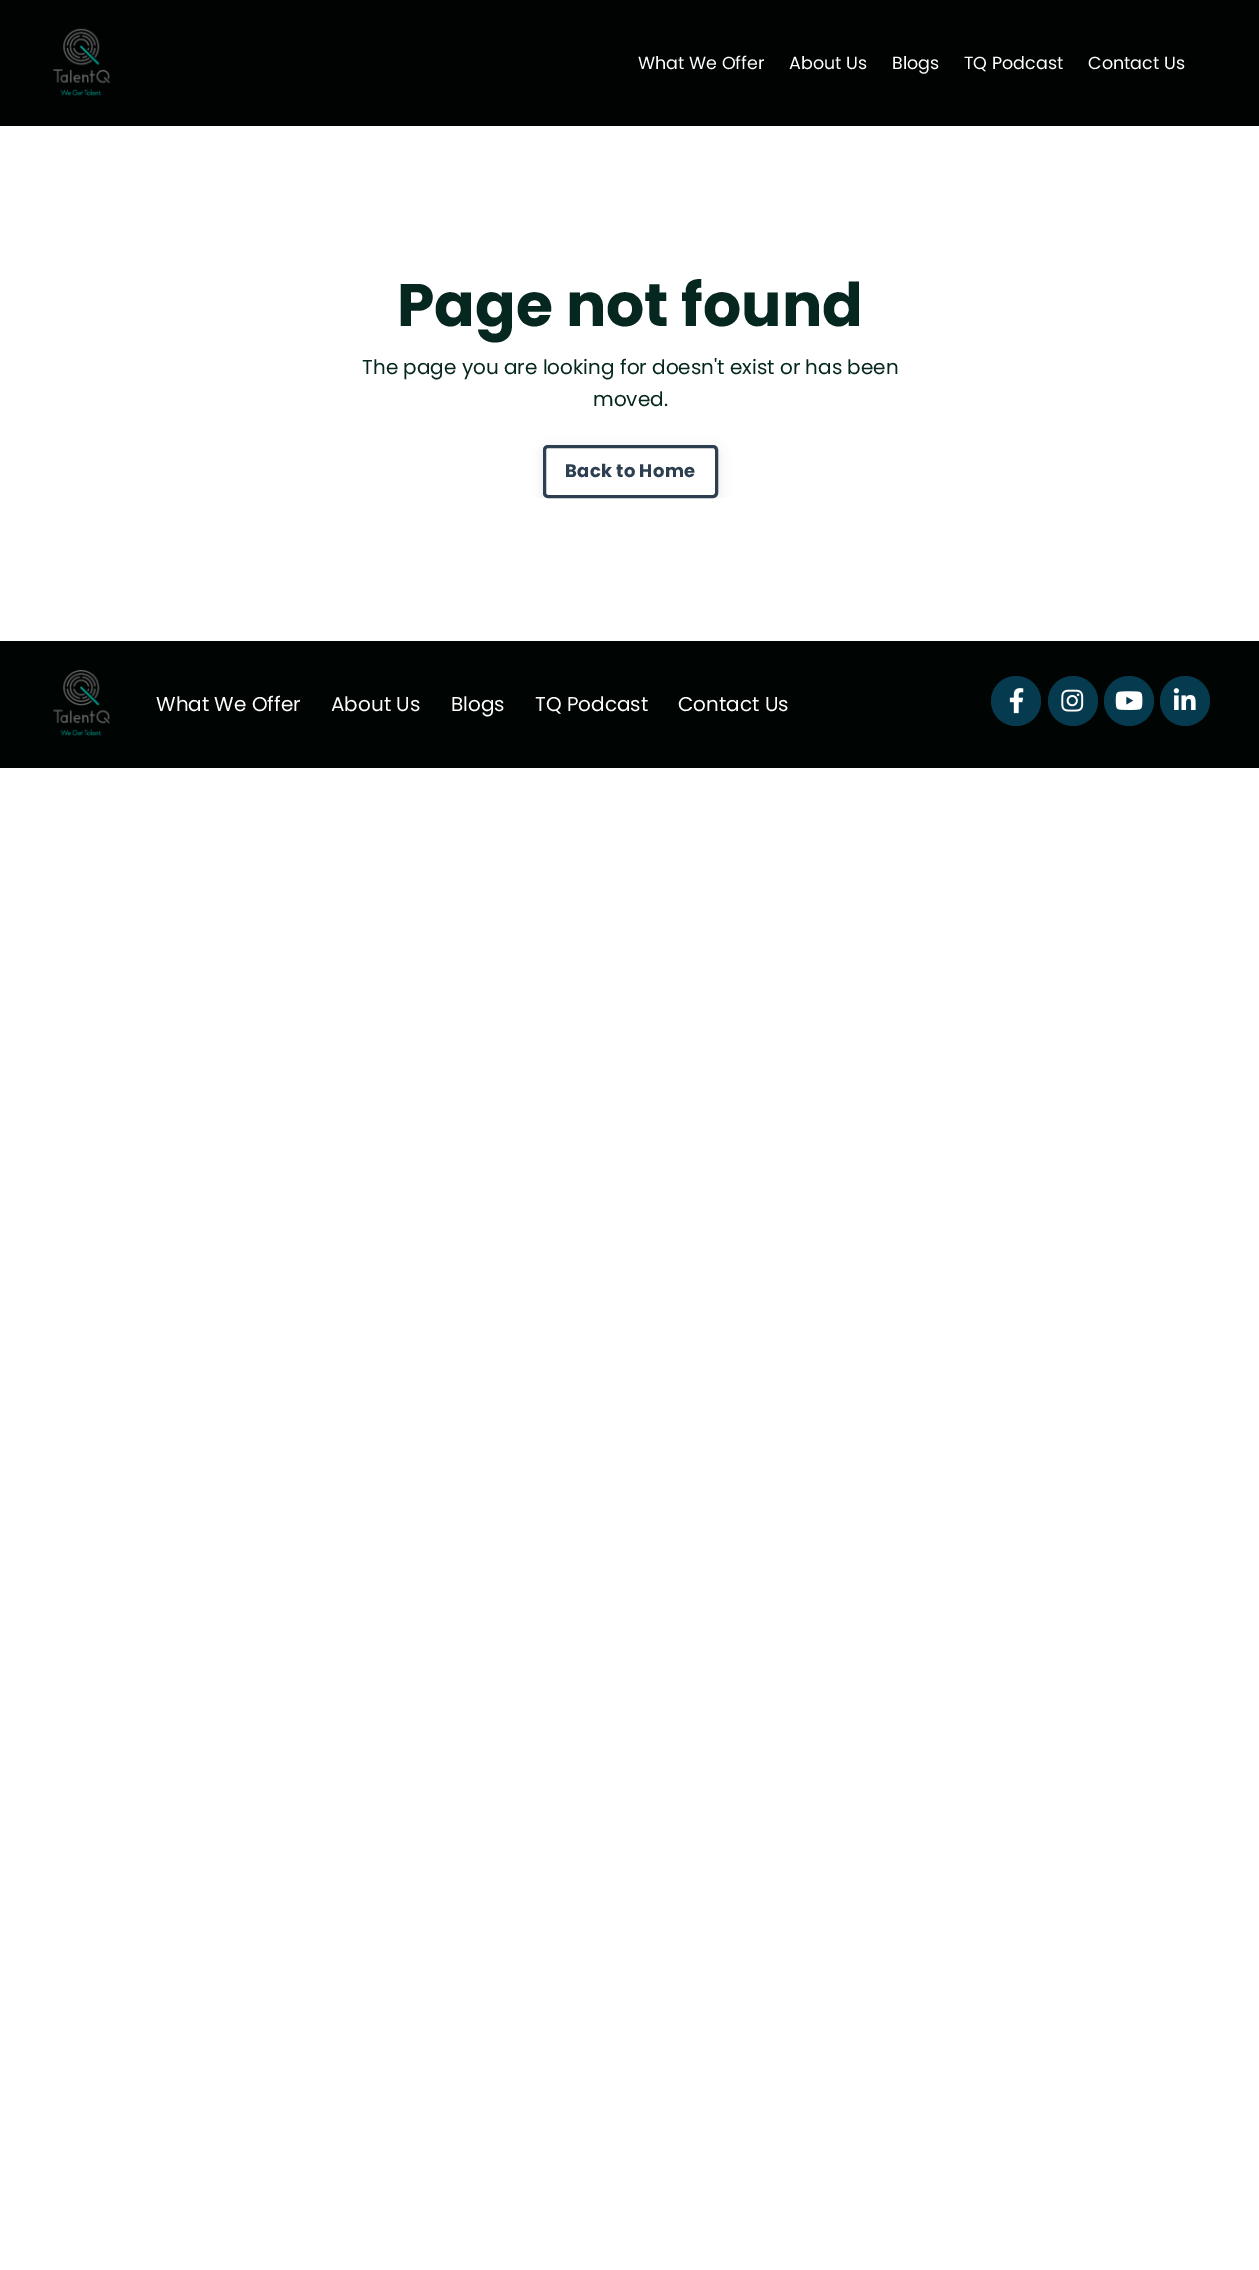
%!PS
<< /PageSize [1259 2270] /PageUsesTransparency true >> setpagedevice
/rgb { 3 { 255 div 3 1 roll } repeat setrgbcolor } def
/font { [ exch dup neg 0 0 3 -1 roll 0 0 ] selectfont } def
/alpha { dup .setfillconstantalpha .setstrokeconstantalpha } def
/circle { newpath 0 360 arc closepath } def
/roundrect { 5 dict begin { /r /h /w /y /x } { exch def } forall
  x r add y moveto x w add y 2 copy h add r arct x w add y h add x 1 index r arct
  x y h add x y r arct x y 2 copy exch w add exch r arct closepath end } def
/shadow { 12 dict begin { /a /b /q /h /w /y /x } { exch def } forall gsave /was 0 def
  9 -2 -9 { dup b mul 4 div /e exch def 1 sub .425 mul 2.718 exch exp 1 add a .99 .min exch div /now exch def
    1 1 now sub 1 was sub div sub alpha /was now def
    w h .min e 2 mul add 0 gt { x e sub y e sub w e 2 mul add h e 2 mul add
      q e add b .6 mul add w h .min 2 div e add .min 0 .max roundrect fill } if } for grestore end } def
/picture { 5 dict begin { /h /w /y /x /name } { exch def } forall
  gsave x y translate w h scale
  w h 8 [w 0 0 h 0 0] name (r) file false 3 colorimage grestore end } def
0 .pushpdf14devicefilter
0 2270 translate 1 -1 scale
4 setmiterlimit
255 255 255 rgb
0 0 1259 2270 rectfill
0 3 2 rgb
0 0 1259 126 rectfill
(img/1.rgb) 52 28 58 68 picture
gsave
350 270 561 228 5 roundrect clip newpath
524 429 moveto 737 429 lineto 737 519 lineto 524 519 lineto closepath 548 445 moveto 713 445 lineto 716 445 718 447 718 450 curveto 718 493 lineto 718 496 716 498 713 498 curveto 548 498 lineto 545 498 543 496 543 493 curveto 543 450 lineto 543 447 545 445 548 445 curveto closepath eoclip newpath
0 0 0 rgb
543 448 175 52 5 6 0.1 shadow
grestore
44 62 80 rgb
3 setlinewidth
544.5 446.5 172 50 3.5 roundrect stroke
0 4 3 rgb
0 641 1259 127 rectfill
(img/2.rgb) 53 670 57 66 picture
6 58 78 rgb
1016 701 25 circle fill
(img/3.rgb) 1009 688 15 26 picture
1073 701 25 circle fill
(img/4.rgb) 1061 689 23 23 picture
1129 701 25 circle fill
(img/5.rgb) 1115 691 28 19 picture
1185 701 25 circle fill
(img/6.rgb) 1173 688 23 22 picture
/Poppins-Regular 17.5 font
255 255 255 rgb
[
  [(What We Offer) 638 69]
  [(About Us) 789 69]
  [(Blogs) 892 69]
  [(TQ Podcast) 964 69]
  [(Contact Us) 1088 69]
] { aload pop moveto show } forall
/Poppins-Bold 60 font
6 39 31 rgb
397 326 moveto (Page not found) show
/Poppins-Regular 20 font
362 374 moveto (The page you are looking for doesn't exist or has been) show
593 406 moveto (moved.) show
/Poppins-Bold 18 font
44 62 80 rgb
565 477 moveto 0.25 0 (Back to Home) ashow
/Poppins-Regular 20 font
255 255 255 rgb
[
  [(What We Offer) 156 711]
  [(About Us) 331 711]
  [(Blogs) 451 711]
  [(TQ Podcast) 535 711]
  [(Contact Us) 678 711]
] { aload pop moveto show } forall
.poppdf14devicefilter showpage
